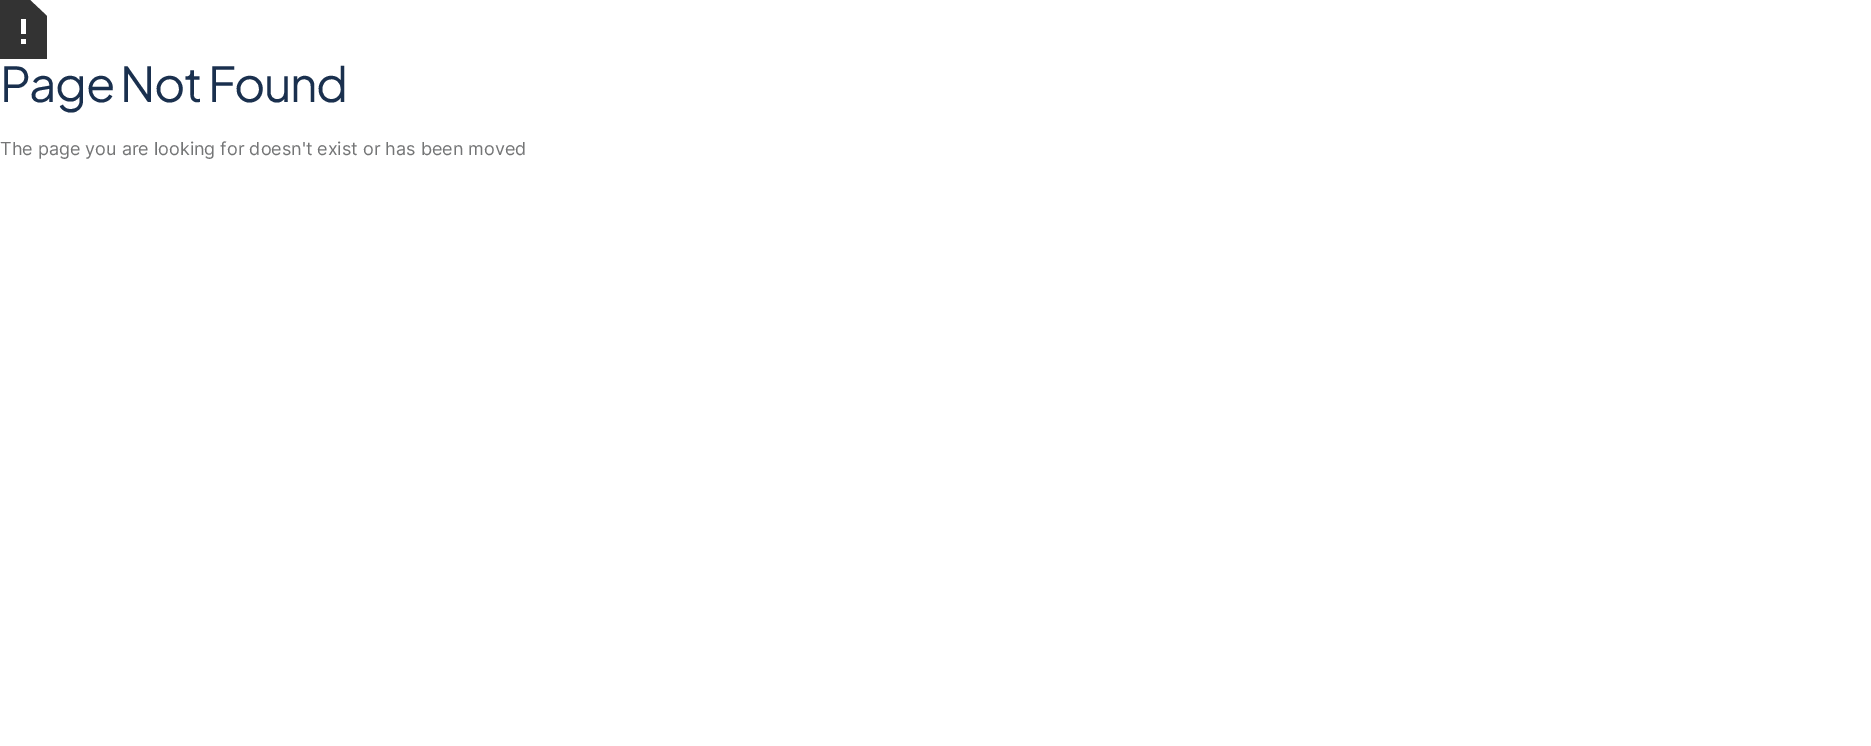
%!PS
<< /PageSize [1871 746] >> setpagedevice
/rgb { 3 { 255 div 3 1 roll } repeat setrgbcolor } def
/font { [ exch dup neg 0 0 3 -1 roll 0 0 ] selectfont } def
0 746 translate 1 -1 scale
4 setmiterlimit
255 255 255 rgb
0 0 1871 746 rectfill
51 51 51 rgb
0 0 moveto 30 0 lineto 47 16 lineto 47 59 lineto 0 59 lineto closepath 21 19 moveto 26 19 lineto 26 34 lineto 21 34 lineto closepath 21 39 moveto 26 39 lineto 26 44 lineto 21 44 lineto closepath eofill
/PlusJakartaSans-Regular 48 font
26 48 78 rgb
0 102 moveto -1.5 0 (Page Not Found) ashow
/Inter-Regular 18 font
116 117 118 rgb
0 155 moveto (The page you are looking for doesn't exist or has been moved) show
showpage
